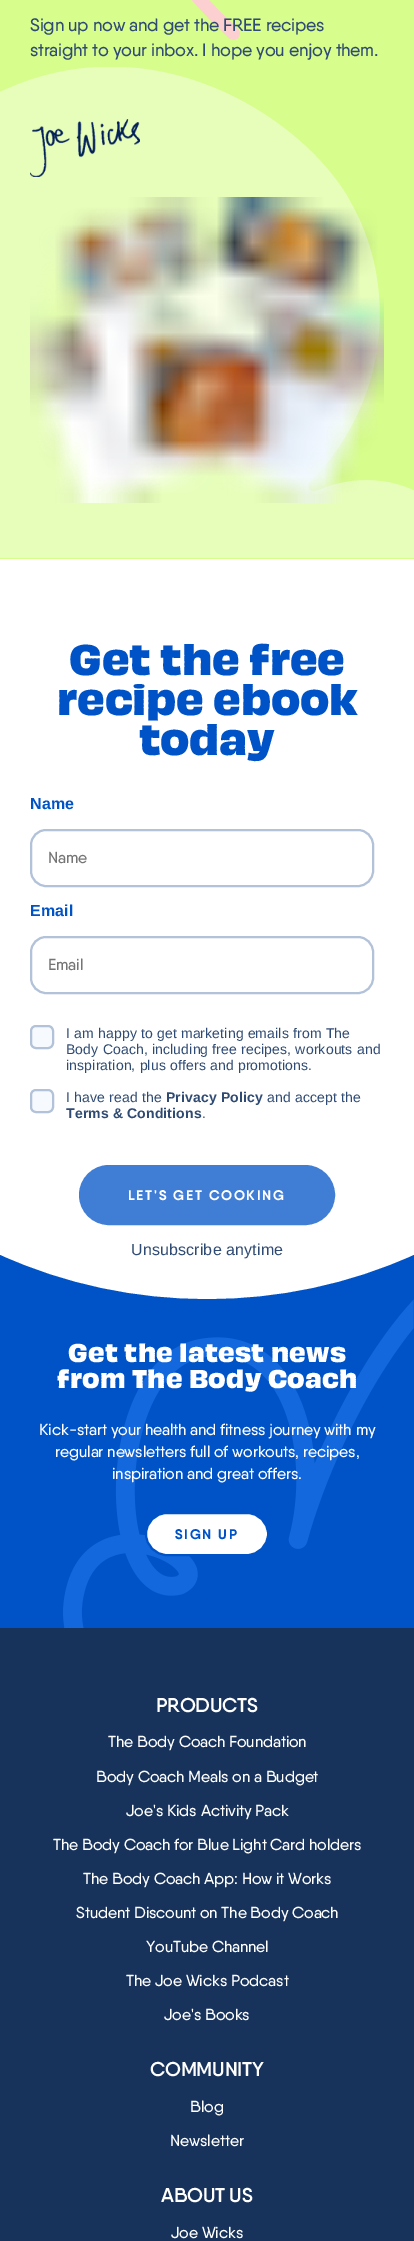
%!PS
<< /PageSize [414 2241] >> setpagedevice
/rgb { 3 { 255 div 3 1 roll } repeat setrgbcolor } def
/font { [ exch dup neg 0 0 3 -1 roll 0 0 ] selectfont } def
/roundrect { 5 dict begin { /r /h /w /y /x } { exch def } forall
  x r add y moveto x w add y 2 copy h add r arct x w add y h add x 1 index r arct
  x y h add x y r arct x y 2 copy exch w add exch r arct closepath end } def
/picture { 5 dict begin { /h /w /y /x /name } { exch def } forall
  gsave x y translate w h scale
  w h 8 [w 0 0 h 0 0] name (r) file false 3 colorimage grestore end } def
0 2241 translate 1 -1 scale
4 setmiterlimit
255 255 255 rgb
0 0 414 2241 rectfill
215 253 140 rgb
0 0 414 559 rectfill
252 208 208 rgb
12.7 setlinewidth
1 setlinecap
1 setlinejoin
364.5 -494 moveto 350.5 -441 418 -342 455 -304 curveto 395.5 -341 302.5 -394.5 257 -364.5 curveto 190.5 -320 310.5 -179.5 394.5 -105 curveto 310 -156 201 -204.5 161.5 -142.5 curveto 126.5 -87.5 173 -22.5 233.5 33.5 curveto stroke
gsave
0 67 414 492 rectclip
231 254 186 rgb
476 558 moveto 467 534 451 513 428 498 curveto 395 477 355 475 321 489 curveto 315 491 lineto 310 493 306 486 310 482 curveto 385 407 402 290 349 199 curveto 297 109 122 0 -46 119 curveto -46 558 lineto closepath fill
grestore
(img/1.rgb) 30 119 110 58 picture
(img/2.rgb) 30 197 354 306 picture
178 194 217 rgb
2 setlinewidth
0 setlinecap
0 setlinejoin
31 830 342 56 15 roundrect stroke
31 937 342 56 15 roundrect stroke
246 249 253 rgb
31 1026 22 22 5 roundrect gsave fill grestore
178 194 217 rgb
stroke
246 249 253 rgb
31 1090 22 22 5 roundrect gsave fill grestore
178 194 217 rgb
stroke
64 126 213 rgb
80 1166 254 58 29 roundrect gsave fill grestore
stroke
0 83 199 rgb
0 1299 414 329 rectfill
(img/3.rgb) 63 1299 351 329 picture
255 255 255 rgb
146 1513 122 42 21 roundrect gsave fill grestore
0 83 199 rgb
stroke
24 51 91 rgb
0 1628 414 613 rectfill
/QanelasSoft-Medium 18 font
47 75 115 rgb
30 31 moveto -0.2 0 (Sign up now and get the FREE recipes) ashow
30 56 moveto -0.2 0 (straight to your inbox. I hope you enjoy them.) ashow
/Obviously-Bold 40 font
0 83 199 rgb
69 675 moveto -0.4 0 (Get the free) ashow
57 715 moveto -0.4 0 (recipe ebook) ashow
139 755 moveto -0.4 0 (today) ashow
/LiberationSans-Bold 16 font
30 809 moveto 0.15 0 (Name) ashow
/QanelasSoft-Medium 16 font
117 117 117 rgb
48 863 moveto -0.15 0 (Name) ashow
/LiberationSans-Bold 16 font
0 83 199 rgb
30 916 moveto 0.15 0 (Email) ashow
/QanelasSoft-Medium 16 font
117 117 117 rgb
48 970 moveto -0.15 0 (Email) ashow
/LiberationSans-Regular 14 font
47 75 115 rgb
66 1038 moveto 0.15 0 (I am happy to get marketing emails from The) ashow
66 1054 moveto 0.15 0 (Body Coach, including free recipes, workouts and) ashow
66 1070 moveto 0.15 0 (inspiration, plus offers and promotions.) ashow
66 1102 moveto 0.15 0 (I have read the) ashow
/LiberationSans-Bold 14 font
166 1102 moveto 0.15 0 (Privacy Policy) ashow
/LiberationSans-Regular 14 font
267 1102 moveto 0.15 0 (and accept the) ashow
/LiberationSans-Bold 14 font
66 1118 moveto 0.15 0 (Terms & Conditions) ashow
/LiberationSans-Regular 14 font
202 1118 moveto 0.15 0 (.) ashow
/QanelasSoft-Bold 14 font
255 255 255 rgb
128 1200 moveto 1.7 0 (LET'S GET COOKING) ashow
/LiberationSans-Regular 16 font
47 75 115 rgb
131 1255 moveto 0.15 0 (Unsubscribe anytime) ashow
gsave
0 1255 414 44 rectclip
0 83 199 rgb
414 1255 moveto 284 1314 130 1314 0 1255 curveto 0 1299 lineto 414 1299 lineto closepath fill
grestore
/Obviously-Bold 24 font
255 255 255 rgb
68 1362 moveto 0.15 0 (Get the latest news) ashow
57 1388 moveto 0.15 0 (from The Body Coach) ashow
/QanelasSoft-Medium 16 font
39 1435 moveto -0.15 0 (Kick-start your health and fitness journey with my) ashow
55 1457 moveto -0.15 0 (regular newsletters full of workouts, recipes,) ashow
112 1479 moveto -0.15 0 (inspiration and great offers.) ashow
/QanelasSoft-Bold 14 font
0 83 199 rgb
175 1539 moveto 1.7 0 (SIGN UP) ashow
/QanelasSoft-SemiBold 20 font
255 255 255 rgb
156 1712 moveto -0.25 0 (PRODUCTS) ashow
/QanelasSoft-Medium 16 font
108 1747 moveto -0.15 0 (The Body Coach Foundation) ashow
96 1782 moveto -0.15 0 (Body Coach Meals on a Budget) ashow
126 1816 moveto -0.15 0 (Joe's Kids Activity Pack) ashow
53 1850 moveto -0.15 0 (The Body Coach for Blue Light Card holders) ashow
83 1884 moveto -0.15 0 (The Body Coach App: How it Works) ashow
76 1918 moveto -0.15 0 (Student Discount on The Body Coach) ashow
146 1952 moveto -0.15 0 (YouTube Channel) ashow
126 1986 moveto -0.15 0 (The Joe Wicks Podcast) ashow
164 2020 moveto -0.15 0 (Joe's Books) ashow
/QanelasSoft-SemiBold 20 font
150 2076 moveto -0.25 0 (COMMUNITY) ashow
/QanelasSoft-Medium 16 font
190 2112 moveto -0.15 0 (Blog) ashow
170 2146 moveto -0.15 0 (Newsletter) ashow
/QanelasSoft-SemiBold 20 font
161 2202 moveto -0.25 0 (ABOUT US) ashow
/QanelasSoft-Medium 16 font
171 2238 moveto -0.15 0 (Joe Wicks) ashow
showpage
